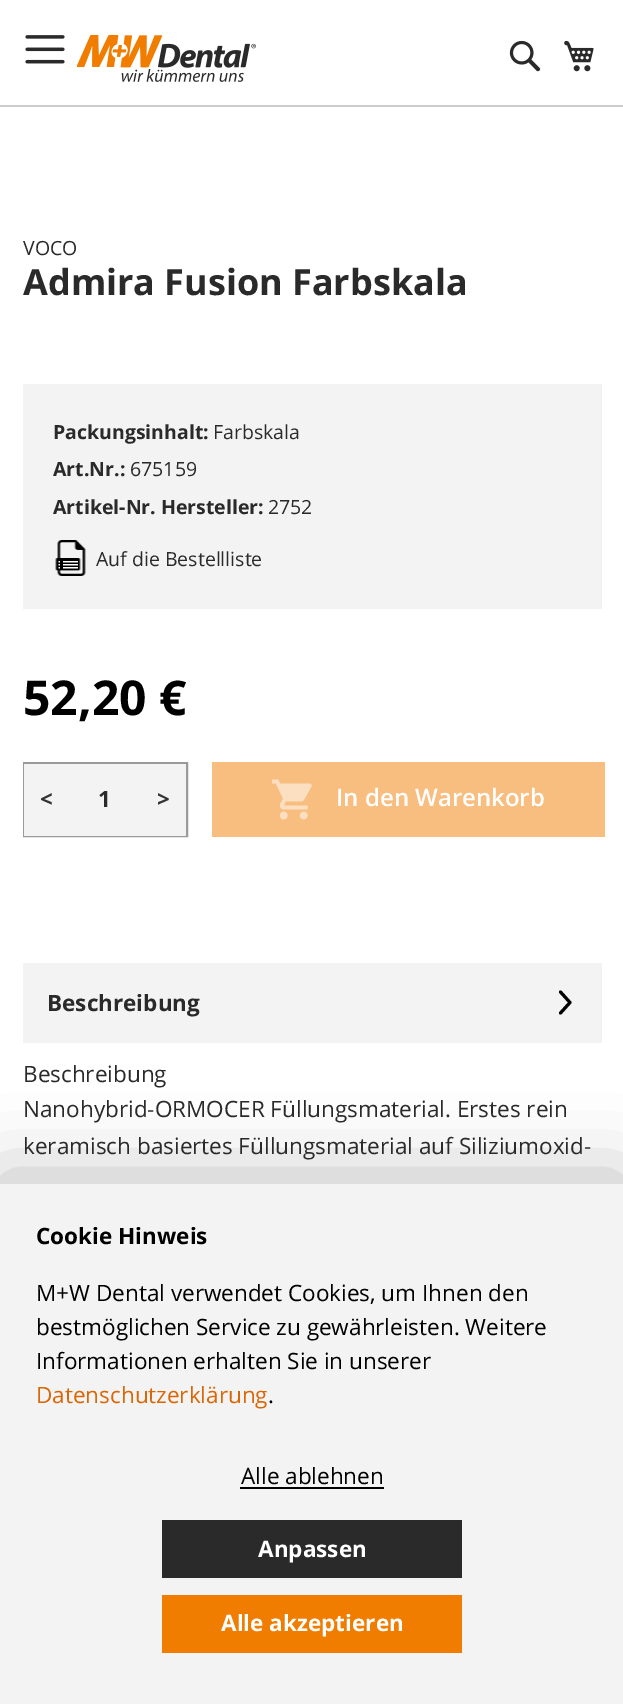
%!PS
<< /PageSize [623 1704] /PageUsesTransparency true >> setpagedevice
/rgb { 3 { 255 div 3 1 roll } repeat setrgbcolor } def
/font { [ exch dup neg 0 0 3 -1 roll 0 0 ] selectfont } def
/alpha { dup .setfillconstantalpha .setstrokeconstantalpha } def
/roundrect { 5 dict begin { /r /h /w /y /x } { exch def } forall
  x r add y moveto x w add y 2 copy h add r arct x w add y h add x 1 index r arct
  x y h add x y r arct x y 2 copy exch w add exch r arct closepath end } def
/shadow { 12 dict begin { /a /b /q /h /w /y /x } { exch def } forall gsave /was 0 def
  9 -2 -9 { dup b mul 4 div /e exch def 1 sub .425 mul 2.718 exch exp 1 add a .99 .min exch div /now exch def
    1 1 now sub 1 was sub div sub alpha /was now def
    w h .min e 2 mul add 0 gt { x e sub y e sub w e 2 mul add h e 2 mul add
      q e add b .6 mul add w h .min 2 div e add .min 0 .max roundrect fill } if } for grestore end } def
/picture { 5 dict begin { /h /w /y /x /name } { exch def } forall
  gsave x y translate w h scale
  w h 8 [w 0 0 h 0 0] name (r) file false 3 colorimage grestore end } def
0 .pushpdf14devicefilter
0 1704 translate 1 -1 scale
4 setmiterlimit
255 255 255 rgb
0 0 623 1704 rectfill
204 204 204 rgb
0 105 623 2 rectfill
(img/1.rgb) 25 35 40 29 picture
(img/2.rgb) 77 35 179 47 picture
(img/3.rgb) 509 40 32 32 picture
(img/4.rgb) 564 40 30 32 picture
243 243 243 rgb
23 384 579 225 rectfill
(img/5.rgb) 55 540 31 36 picture
154 154 154 rgb
2 setlinewidth
24 763 163 73 rectstroke
243 243 243 rgb
24 764 162 72 rectfill
248 190 128 rgb
212 762 393 75 rectfill
(img/6.rgb) 272 779 40 41 picture
243 243 243 rgb
23 963 579 80 rectfill
gsave
553.5 1014.5 moveto 553.5 990.5 lineto 577.5 990.5 lineto 577.5 1014.5 lineto closepath clip newpath
0 0 0 rgb
3 setlinewidth
1 setlinecap
1 setlinejoin
560.5 1013 moveto 570 1002.5 lineto 560.5 992 lineto stroke
grestore
0 0 0 rgb
0 1176 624 521 0 37.5 0.25 shadow
[
  [0 1184 623 520 243 243 243]
  [240 1487 144 2 0 0 0]
  [162 1520 300 58 42 42 42]
  [162 1595 300 58 240 125 0]
] { aload pop rgb rectfill } forall
/OpenSans-Regular 19.5 font
42 42 42 rgb
23 255 moveto (VOCO) show
/OpenSans-Bold 36 font
23 295 moveto (Admira Fusion Farbskala) show
/OpenSans-Bold 19.5 font
53 439 moveto (Packungsinhalt:) show
/OpenSans-Regular 19.5 font
213 439 moveto (Farbskala) show
/OpenSans-Bold 19.5 font
53 476 moveto (Art.Nr.:) show
/OpenSans-Regular 19.5 font
130 476 moveto (675159) show
/OpenSans-Bold 19.5 font
53 514 moveto (Artikel-Nr. Hersteller:) show
/OpenSans-Regular 19.5 font
268 514 moveto (2752) show
96 566 moveto (Auf die Bestellliste) show
/OpenSans-Bold 48 font
0 0 0 rgb
23 715 moveto (52,20 €) show
/OpenSans-Bold 22.5 font
51 51 51 rgb
40 807 moveto (<) show
42 42 42 rgb
98 807 moveto (1) show
51 51 51 rgb
157 807 moveto (>) show
/OpenSans-SemiBold 24 font
255 255 255 rgb
336 806 moveto (In den Warenkorb) show
/OpenSans-Bold 22.5 font
42 42 42 rgb
47 1011 moveto (Beschreibung) show
/OpenSans-Regular 22.5 font
[
  [(Beschreibung) 23 1082]
  [(Nanohybrid-ORMOCER Füllungsmaterial. Erstes rein) 23 1117]
  [(keramisch basiertes Füllungsmaterial auf Siliziumoxid-) 23 1154]
] { aload pop moveto show } forall
/OpenSans-Bold 22.5 font
0 0 0 rgb
36 1244 moveto (Cookie Hinweis) show
/OpenSans-Regular 22.5 font
[
  [(M+W Dental verwendet Cookies, um Ihnen den) 36 1301]
  [(bestmöglichen Service zu gewährleisten. Weitere) 36 1335]
  [(Informationen erhalten Sie in unserer) 36 1369]
] { aload pop moveto show } forall
217 103 6 rgb
36 1403 moveto (Datenschutzerklärung) show
0 0 0 rgb
268 1403 moveto (.) show
241 1484 moveto (Alle ablehnen) show
/OpenSans-Bold 22.5 font
255 255 255 rgb
258 1557 moveto (Anpassen) show
221 1631 moveto (Alle akzeptieren) show
.poppdf14devicefilter showpage
